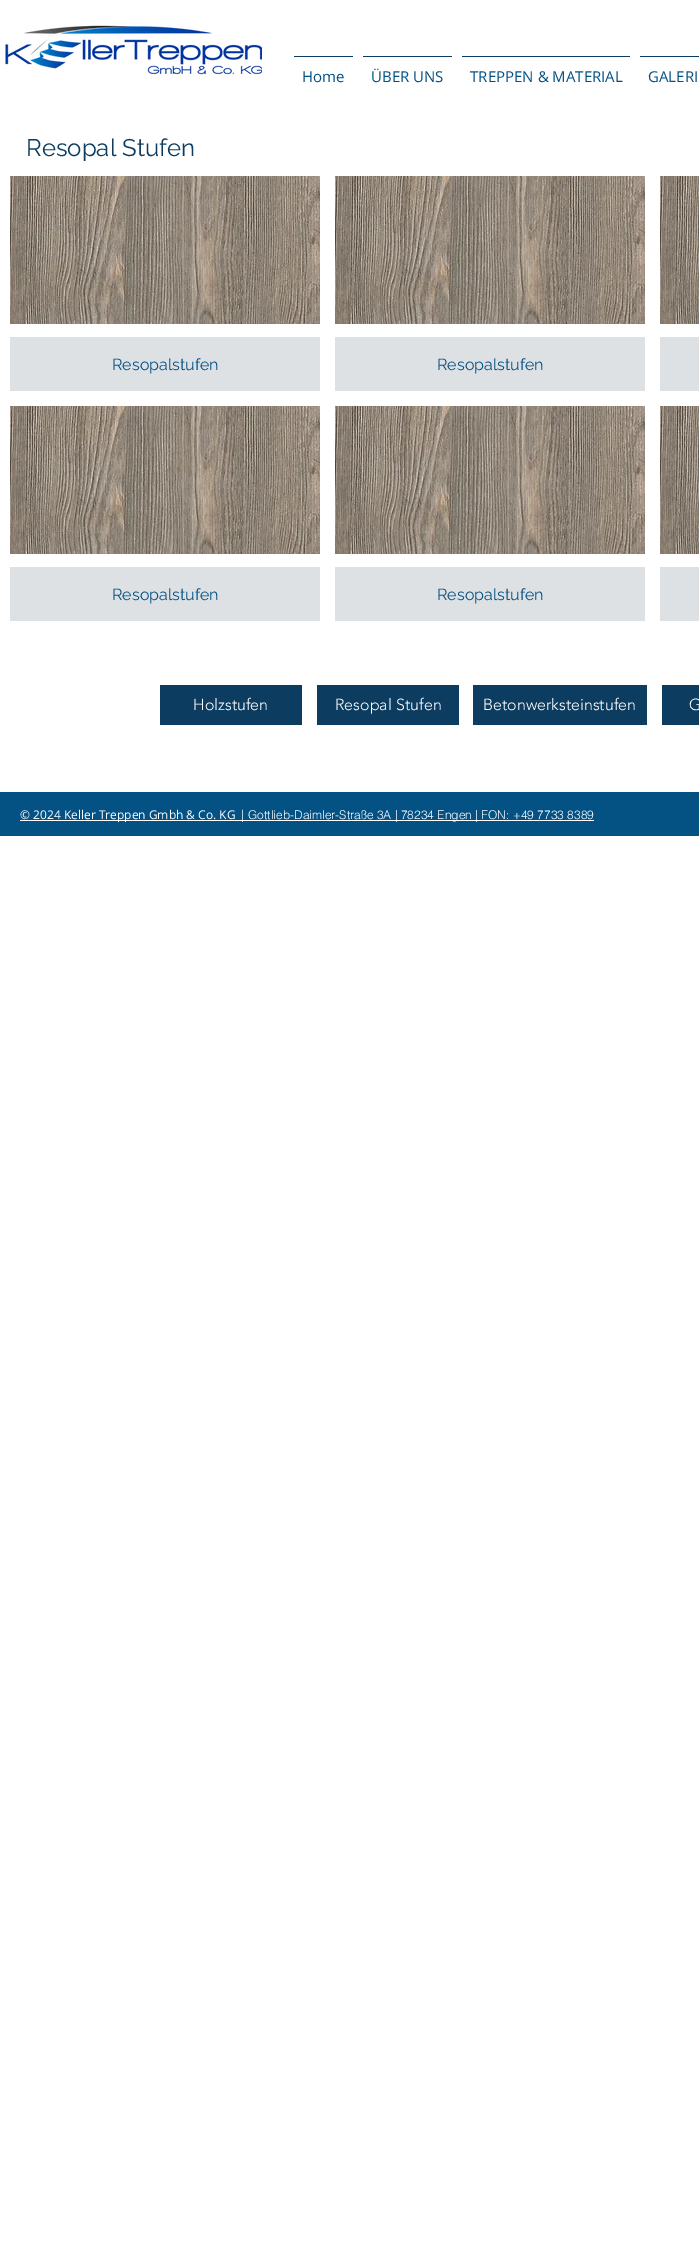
%!PS
<< /PageSize [699 2258] >> setpagedevice
/rgb { 3 { 255 div 3 1 roll } repeat setrgbcolor } def
/font { [ exch dup neg 0 0 3 -1 roll 0 0 ] selectfont } def
/picture { 5 dict begin { /h /w /y /x /name } { exch def } forall
  gsave x y translate w h scale
  w h 8 [w 0 0 h 0 0] name (r) file false 3 colorimage grestore end } def
0 2258 translate 1 -1 scale
4 setmiterlimit
255 255 255 rgb
0 0 699 2258 rectfill
(img/1.rgb) 5 25 257 50 picture
[
  [294 56 59 1 12 60 96]
  [363 56 89 1 12 60 96]
  [462 56 168 1 12 60 96]
  [640 56 59 1 12 60 96]
] { aload pop rgb rectfill } forall
(img/2.rgb) 10 176 310 148 picture
222 225 227 rgb
10 337 310 54 rectfill
(img/2.rgb) 335 176 310 148 picture
335 337 310 54 rectfill
(img/3.rgb) 660 176 39 148 picture
660 337 39 54 rectfill
(img/2.rgb) 10 406 310 148 picture
10 567 310 54 rectfill
(img/2.rgb) 335 406 310 148 picture
335 567 310 54 rectfill
(img/3.rgb) 660 406 39 148 picture
[
  [660 567 39 54 222 225 227]
  [160 685 142 40 12 60 96]
  [317 685 142 40 12 60 96]
  [473 685 174 40 12 60 96]
  [662 685 37 40 12 60 96]
  [0 792 699 44 4 81 132]
  [20 820 574 1 255 255 255]
] { aload pop rgb rectfill } forall
/OpenSans-Regular 15 font
4 81 132 rgb
[
  [(Home) 302 82]
  [(ÜBER UNS) 371 82]
  [(TREPPEN & MATERIAL) 470 82]
  [(GALERI) 648 82]
] { aload pop moveto show } forall
/Raleway-Regular 24 font
12 60 96 rgb
26 156 moveto (Resopal Stufen) show
/Raleway-Regular 16 font
4 81 132 rgb
[
  [(Resopalstufen) 112 370]
  [(Resopalstufen) 437 370]
  [(Resopalstufen) 112 600]
  [(Resopalstufen) 437 600]
] { aload pop moveto show } forall
/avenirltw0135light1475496-Light 16 font
255 255 255 rgb
[
  [(Holzstufen) 193 710]
  [(Resopal Stufen) 335 710]
  [(Betonwerksteinstufen) 483 710]
  [(G) 689 710]
] { aload pop moveto show } forall
/OpenSans-Regular 12 font
20 819 moveto (© 2024 Keller Treppen Gmbh & Co. KG |) show
/helvetica-Light 12 font
248 819 moveto (Gottlieb-Daimler-Straße 3A | 78234 Engen | FON: +49 7733 8389) show
showpage
